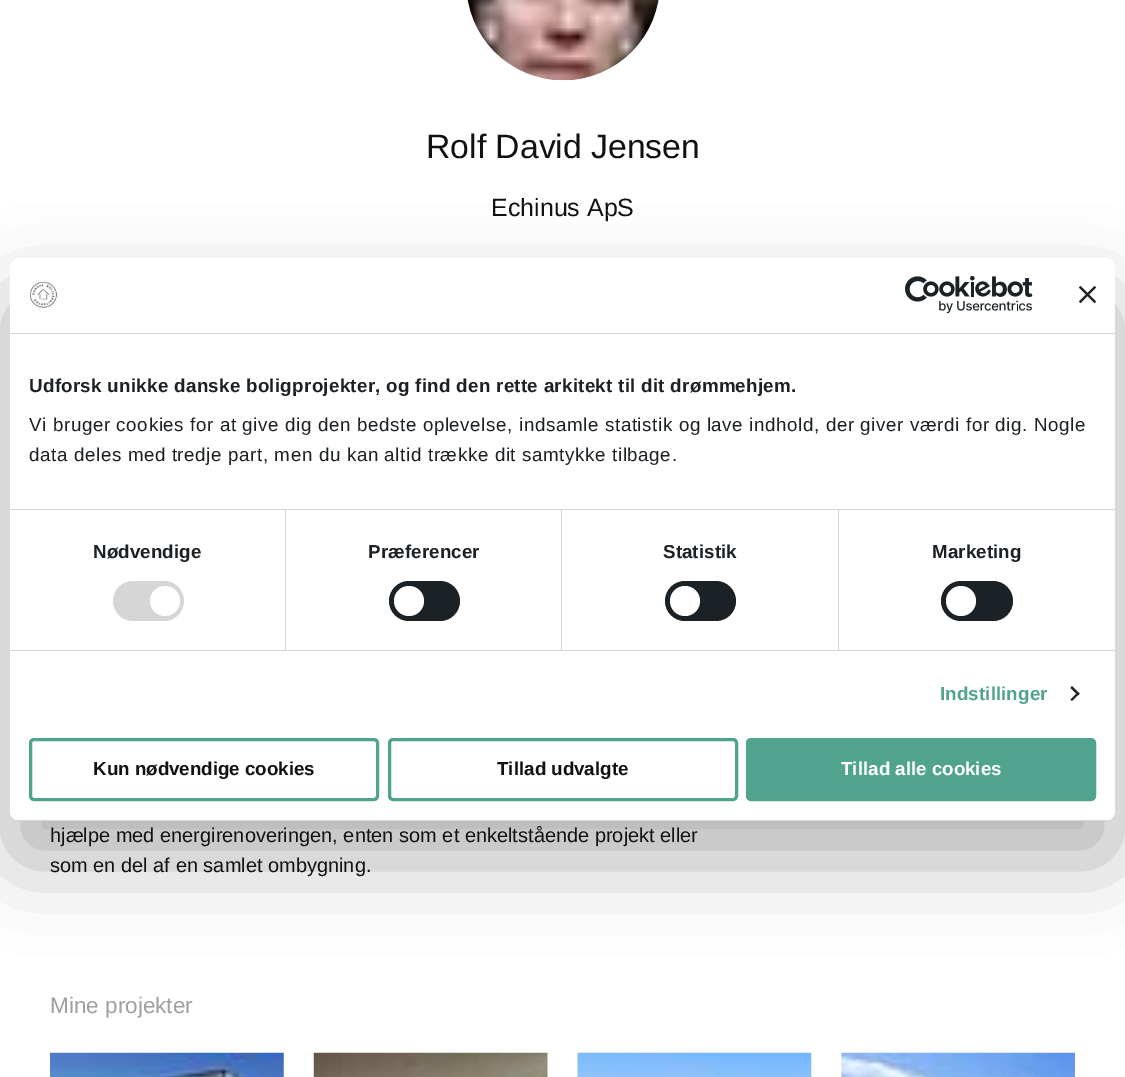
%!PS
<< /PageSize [1125 1077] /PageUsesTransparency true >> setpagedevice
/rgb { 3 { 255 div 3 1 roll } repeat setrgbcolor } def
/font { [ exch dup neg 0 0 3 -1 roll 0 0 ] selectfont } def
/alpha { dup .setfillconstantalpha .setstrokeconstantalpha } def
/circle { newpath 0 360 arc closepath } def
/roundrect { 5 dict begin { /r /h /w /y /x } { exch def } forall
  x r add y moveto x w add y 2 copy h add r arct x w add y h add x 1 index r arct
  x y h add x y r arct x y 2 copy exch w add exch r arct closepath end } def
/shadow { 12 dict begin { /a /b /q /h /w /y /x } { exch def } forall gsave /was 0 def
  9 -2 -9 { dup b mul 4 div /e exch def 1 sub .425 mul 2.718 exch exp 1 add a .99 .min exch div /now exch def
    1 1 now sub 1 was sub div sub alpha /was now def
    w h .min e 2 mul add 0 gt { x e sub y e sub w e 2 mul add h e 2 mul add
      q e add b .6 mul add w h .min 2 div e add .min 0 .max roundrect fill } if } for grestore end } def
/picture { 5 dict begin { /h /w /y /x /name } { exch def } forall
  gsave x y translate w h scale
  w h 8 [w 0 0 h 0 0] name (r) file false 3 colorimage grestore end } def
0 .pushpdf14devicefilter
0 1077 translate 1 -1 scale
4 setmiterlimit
255 255 255 rgb
0 0 1125 1077 rectfill
(img/1.rgb) 467 0 192 81 picture
(img/2.rgb) 50 1052 234 25 picture
(img/3.rgb) 313 1052 235 25 picture
(img/4.rgb) 577 1052 235 25 picture
(img/5.rgb) 841 1052 234 25 picture
0 0 0 rgb
10 298 1105 563 10 42.5 0.3 shadow
255 255 255 rgb
10 258 1105 563 10 roundrect fill
214 214 214 rgb
10 333 1105 1 rectfill
(img/6.rgb) 30 282 28 26 picture
(img/7.rgb) 905 276 128 38 picture
(img/8.rgb) 1079 286 17 18 picture
[
  [10 509 1105 1 214 214 214]
  [10 650 1105 1 214 214 214]
  [285 510 1 140 214 214 214]
] { aload pop rgb rectfill } forall
113 581 71 40 20 roundrect fill
255 255 255 rgb
165 601 15 circle fill
214 214 214 rgb
561 510 1 140 rectfill
27 33 37 rgb
389 581 71 40 20 roundrect fill
255 255 255 rgb
409 601 15 circle fill
214 214 214 rgb
838 510 1 140 rectfill
27 33 37 rgb
665 581 71 40 20 roundrect fill
255 255 255 rgb
685 601 15 circle fill
27 33 37 rgb
941 581 72 40 20 roundrect fill
255 255 255 rgb
961 601 15 circle fill
27 33 37 rgb
1072 686 moveto 1079.5 693.5 lineto 1078 695.5 lineto 1070.5 688 lineto closepath fill
1078 692 moveto 1079.5 693.5 lineto 1072 701 lineto 1070.5 699.5 lineto closepath fill
gsave
10 258 1105 563 10 roundrect clip newpath
214 214 214 rgb
10 820 1105 1 rectfill
grestore
80 163 141 rgb
3 setlinewidth
30.5 739.5 347 60 3.5 roundrect stroke
389.5 739.5 347 60 3.5 roundrect stroke
747.5 739.5 347 60 3.5 roundrect gsave fill grestore
stroke
/LiberationSans-Regular 33.75 font
17 17 17 rgb
426 158 moveto (Rolf David Jensen) show
/LiberationSans-Regular 25 font
491 216 moveto (Echinus ApS) show
/LiberationSans-Regular 20 font
50 842 moveto (hjælpe med energirenoveringen, enten som et enkeltstående projekt eller) show
50 872 moveto (som en del af en samlet ombygning.) show
/LiberationSans-Regular 22.5 font
160 160 160 rgb
50 1013 moveto (Mine projekter) show
/LiberationSans-Bold 18.75 font
27 33 37 rgb
29 392 moveto 0.3 0 (Udforsk unikke danske boligprojekter, og find den rette arkitekt til dit drømmehjem.) ashow
/LiberationSans-Regular 18.75 font
29 431 moveto 0.62 0 (Vi bruger cookies for at give dig den bedste oplevelse, indsamle statistik og lave indhold, der giver værdi for dig. Nogle) ashow
29 461 moveto 0.62 0 (data deles med tredje part, men du kan altid trække dit samtykke tilbage.) ashow
/LiberationSans-Bold 18.75 font
93 558 moveto 0.1 0 (Nødvendige) ashow
368 558 moveto 0.1 0 (Præferencer) ashow
663 558 moveto 0.1 0 (Statistik) ashow
932 558 moveto 0.1 0 (Marketing) ashow
80 163 141 rgb
940 700 moveto 0.1 0 (Indstillinger) ashow
17 17 17 rgb
93 775 moveto (Kun nødvendige cookies) show
497 775 moveto (Tillad udvalgte) show
255 255 255 rgb
841 775 moveto (Tillad alle cookies) show
.poppdf14devicefilter showpage
